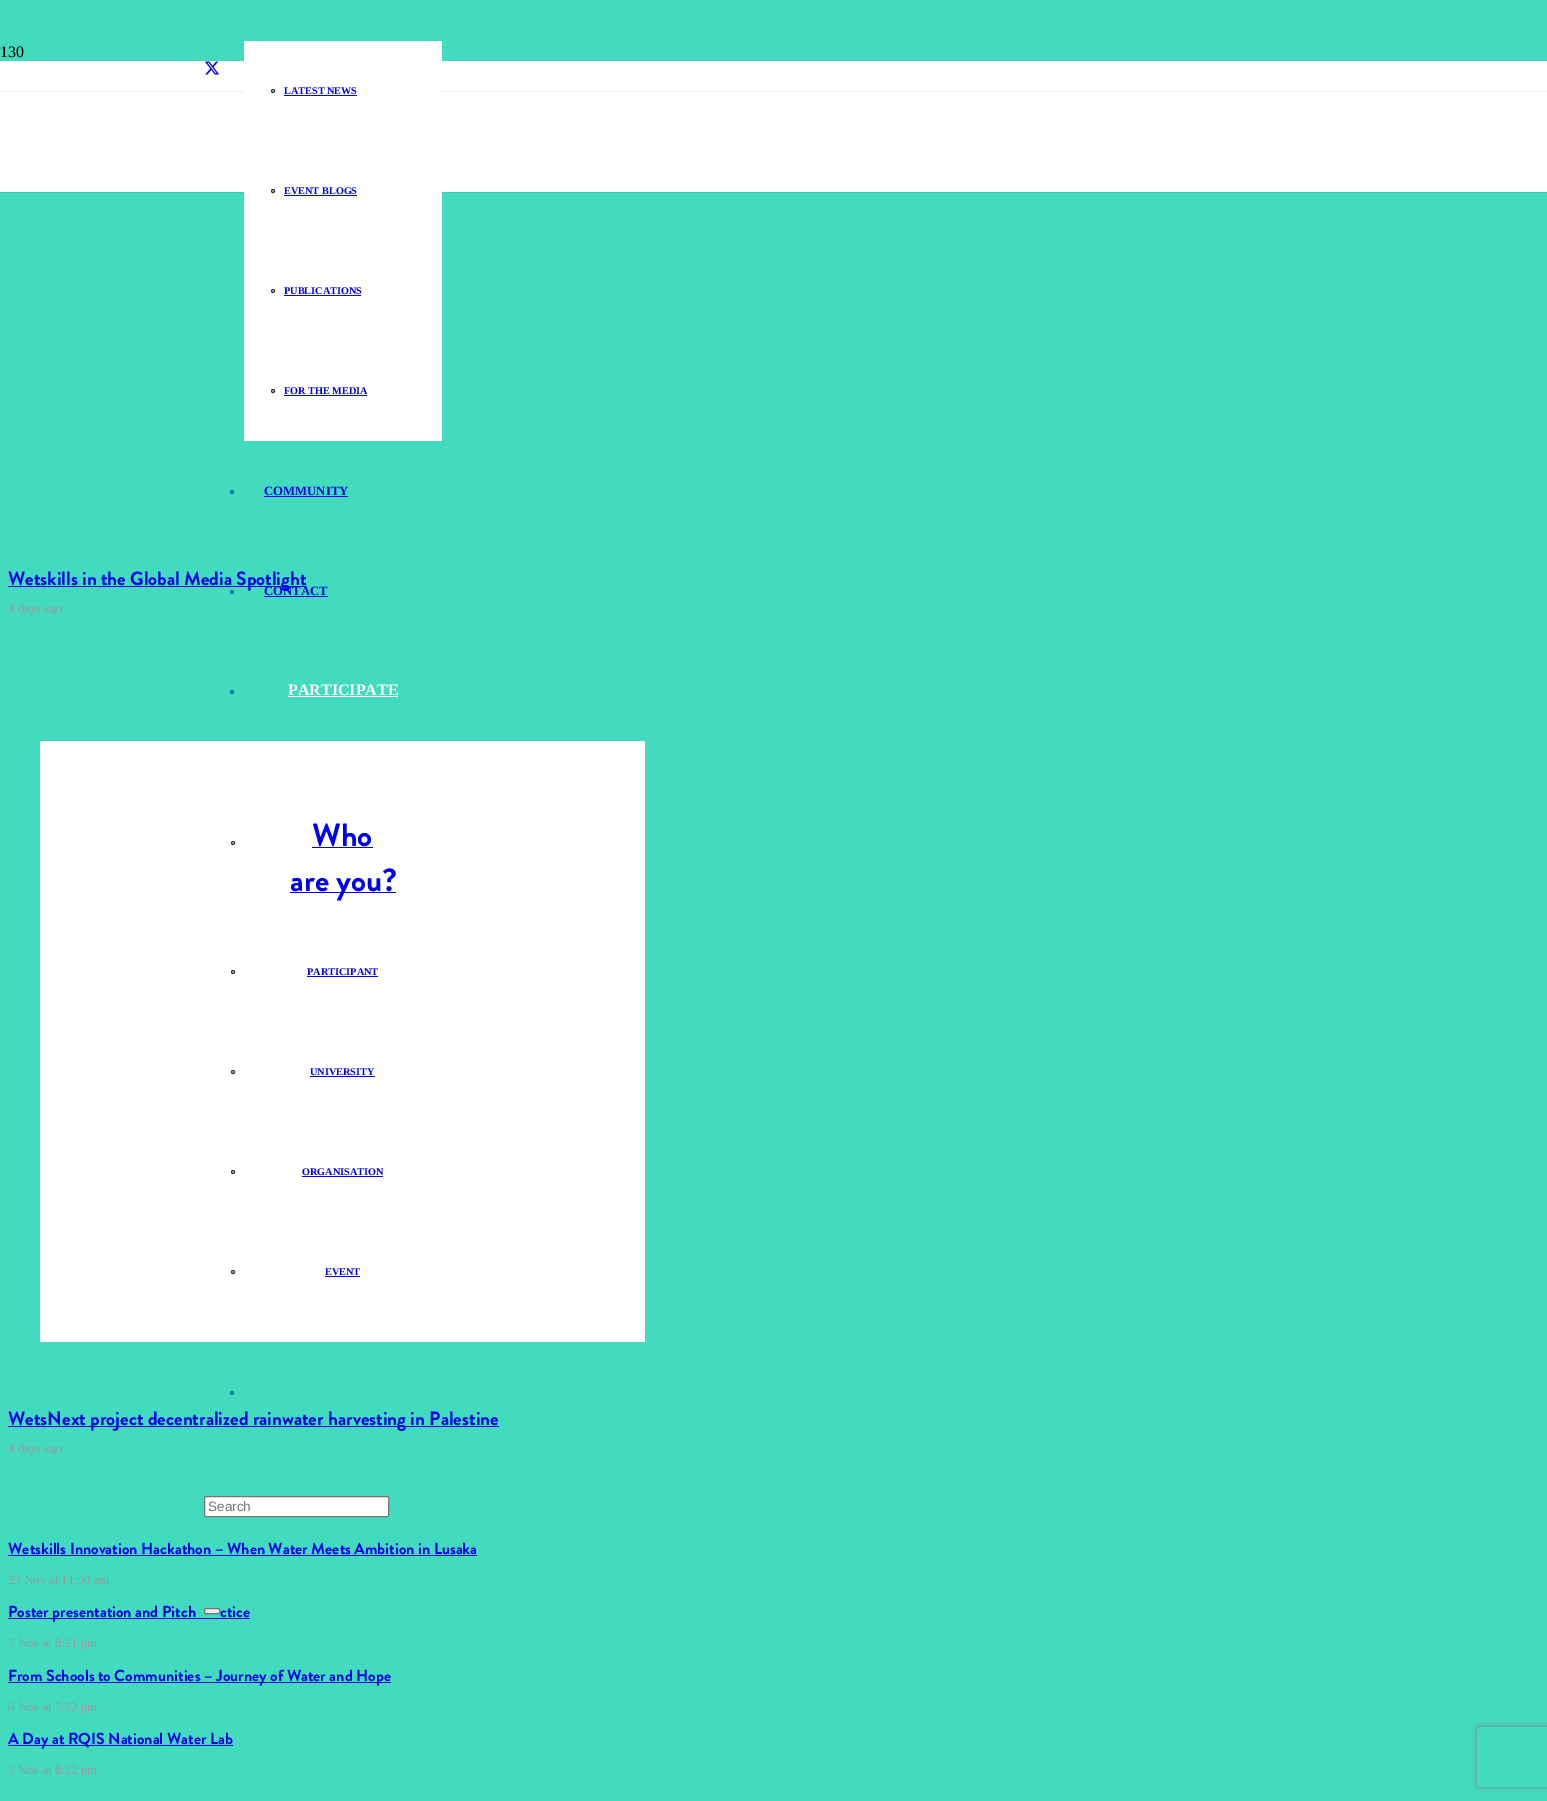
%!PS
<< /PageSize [1547 1801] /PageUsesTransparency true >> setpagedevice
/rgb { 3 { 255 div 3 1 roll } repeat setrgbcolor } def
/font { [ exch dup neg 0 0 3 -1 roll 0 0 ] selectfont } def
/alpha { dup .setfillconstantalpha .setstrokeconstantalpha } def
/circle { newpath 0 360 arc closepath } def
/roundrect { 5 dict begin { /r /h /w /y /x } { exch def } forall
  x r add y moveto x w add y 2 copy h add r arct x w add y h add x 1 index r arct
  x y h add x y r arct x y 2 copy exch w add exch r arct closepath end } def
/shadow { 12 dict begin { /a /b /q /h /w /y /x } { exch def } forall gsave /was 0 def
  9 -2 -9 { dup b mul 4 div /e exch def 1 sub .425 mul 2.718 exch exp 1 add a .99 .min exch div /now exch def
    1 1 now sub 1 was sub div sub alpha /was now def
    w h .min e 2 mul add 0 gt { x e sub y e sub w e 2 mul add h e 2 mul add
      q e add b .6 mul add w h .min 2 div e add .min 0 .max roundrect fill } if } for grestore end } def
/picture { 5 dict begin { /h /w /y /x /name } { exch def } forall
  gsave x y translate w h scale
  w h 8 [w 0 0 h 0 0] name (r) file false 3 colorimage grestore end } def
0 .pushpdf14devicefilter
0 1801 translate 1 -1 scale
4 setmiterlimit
67 219 189 rgb
0 0 1547 1801 rectfill
255 255 255 rgb
0 61 1547 30 rectfill
238 238 238 rgb
0 91 1547 1 rectfill
(img/1.rgb) 205 61 15 14 picture
[
  [0 192 1547 1 62 201 174]
  [0 92 1547 100 255 255 255]
  [244 41 198 400 255 255 255]
] { aload pop rgb rectfill } forall
51 51 51 rgb
273 91 1.5 circle stroke
0 0 238 rgb
284 95 73 1 rectfill
51 51 51 rgb
273 191 1.5 circle stroke
0 0 238 rgb
284 195 73 1 rectfill
51 51 51 rgb
273 291 1.5 circle stroke
0 0 238 rgb
284 295 77 1 rectfill
51 51 51 rgb
273 391 1.5 circle stroke
0 0 238 rgb
284 395 83 1 rectfill
0 118 178 rgb
232 492 2 circle fill
0 0 238 rgb
264 496 84 1 rectfill
264 596 64 1 rectfill
0 118 178 rgb
232 692 2 circle fill
255 255 255 rgb
288 696 110 1 rectfill
40 741 605 601 rectfill
51 51 51 rgb
233 843 1.5 circle stroke
0 0 238 rgb
312 847 61 1 rectfill
290 892 106 1 rectfill
51 51 51 rgb
233 972 1.5 circle stroke
0 0 238 rgb
307 976 71 1 rectfill
51 51 51 rgb
233 1072 1.5 circle stroke
0 0 238 rgb
310 1076 65 1 rectfill
51 51 51 rgb
233 1172 1.5 circle stroke
0 0 238 rgb
302 1176 81 1 rectfill
51 51 51 rgb
233 1272 1.5 circle stroke
0 0 238 rgb
325 1276 35 1 rectfill
0 118 178 rgb
232 1393 2 circle fill
255 255 255 rgb
204.5 1496.5 184 20 1.5 roundrect gsave fill grestore
118 118 118 rgb
stroke
239 239 239 rgb
204.5 1608.5 15 5 1.5 roundrect gsave fill grestore
118 118 118 rgb
stroke
[
  [8 586 298 1 0 0 238]
  [8 1426 491 1 0 0 238]
  [8 1555 469 1 0 0 238]
  [8 1618 242 1 0 0 238]
  [8 1682 383 1 0 0 238]
  [8 1745 225 1 0 0 238]
] { aload pop rgb rectfill } forall
gsave
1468 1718 moveto 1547 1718 lineto 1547 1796 lineto 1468 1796 lineto closepath 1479 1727 moveto 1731 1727 lineto 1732 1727 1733 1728 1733 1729 curveto 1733 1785 lineto 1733 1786 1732 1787 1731 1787 curveto 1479 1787 lineto 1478 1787 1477 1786 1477 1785 curveto 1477 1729 lineto 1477 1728 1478 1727 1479 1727 curveto closepath eoclip newpath
128 128 128 rgb
1477 1727 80 60 2 2.5 1 shadow
grestore
/LiberationSerif-Regular 16 font
0 0 0 rgb
0 57 moveto (130) show
/LiberationSerif-Bold 10.25 font
0 0 238 rgb
[
  [(LATEST NEWS) 284 94]
  [(EVENT BLOGS) 284 194]
  [(PUBLICATIONS) 284 294]
  [(FOR THE MEDIA) 284 394]
] { aload pop moveto show } forall
/LiberationSerif-Bold 12.75 font
264 495 moveto (COMMUNITY) show
/LiberationSerif-Bold 16 font
255 255 255 rgb
288 695 moveto (PARTICIPATE) show
/BrandonGrotesque-Bold 32 font
0 0 238 rgb
312 846 moveto (Who) show
290 891 moveto (are you?) show
/LiberationSerif-Bold 10.25 font
[
  [(PARTICIPANT) 307 975]
  [(UNIVERSITY) 310 1075]
  [(ORGANISATION) 302 1175]
  [(EVENT) 325 1275]
] { aload pop moveto show } forall
/LiberationSans-Regular 13.5 font
117 117 117 rgb
208 1511 moveto (Search) show
/BrandonGrotesque-Bold 19.2 font
0 0 238 rgb
8 585 moveto (Wetskills in the Global Media Spotlight) show
/LiberationSerif-Bold 12.75 font
264 595 moveto (CONTACT) show
0 118 178 rgb
232 592 2 circle fill
/LiberationSerif-Regular 12.75 font
153 153 153 rgb
8 612 moveto (4 days ago) show
/BrandonGrotesque-Bold 19.2 font
0 0 238 rgb
8 1425 moveto (WetsNext project decentralized rainwater harvesting in Palestine) show
/LiberationSerif-Regular 12.75 font
153 153 153 rgb
8 1452 moveto (4 days ago) show
/BrandonGrotesque-Bold 16 font
0 0 238 rgb
8 1554 moveto (Wetskills Innovation Hackathon – When Water Meets Ambition in Lusaka) show
/LiberationSerif-Regular 12.75 font
153 153 153 rgb
8 1584 moveto (23 Nov at 11:50 am) show
/BrandonGrotesque-Bold 16 font
0 0 238 rgb
8 1617 moveto (Poster presentation and Pitch) show
220 1617 moveto (ctice) show
/LiberationSerif-Regular 12.75 font
153 153 153 rgb
8 1647 moveto (7 Nov at 8:21 pm) show
/BrandonGrotesque-Bold 16 font
0 0 238 rgb
8 1681 moveto (From Schools to Communities – Journey of Water and Hope) show
/LiberationSerif-Regular 12.75 font
153 153 153 rgb
8 1711 moveto (6 Nov at 7:52 pm) show
/BrandonGrotesque-Bold 16 font
0 0 238 rgb
8 1744 moveto (A Day at RQIS National Water Lab) show
/LiberationSerif-Regular 12.75 font
153 153 153 rgb
8 1774 moveto (5 Nov at 6:22 pm) show
.poppdf14devicefilter showpage
